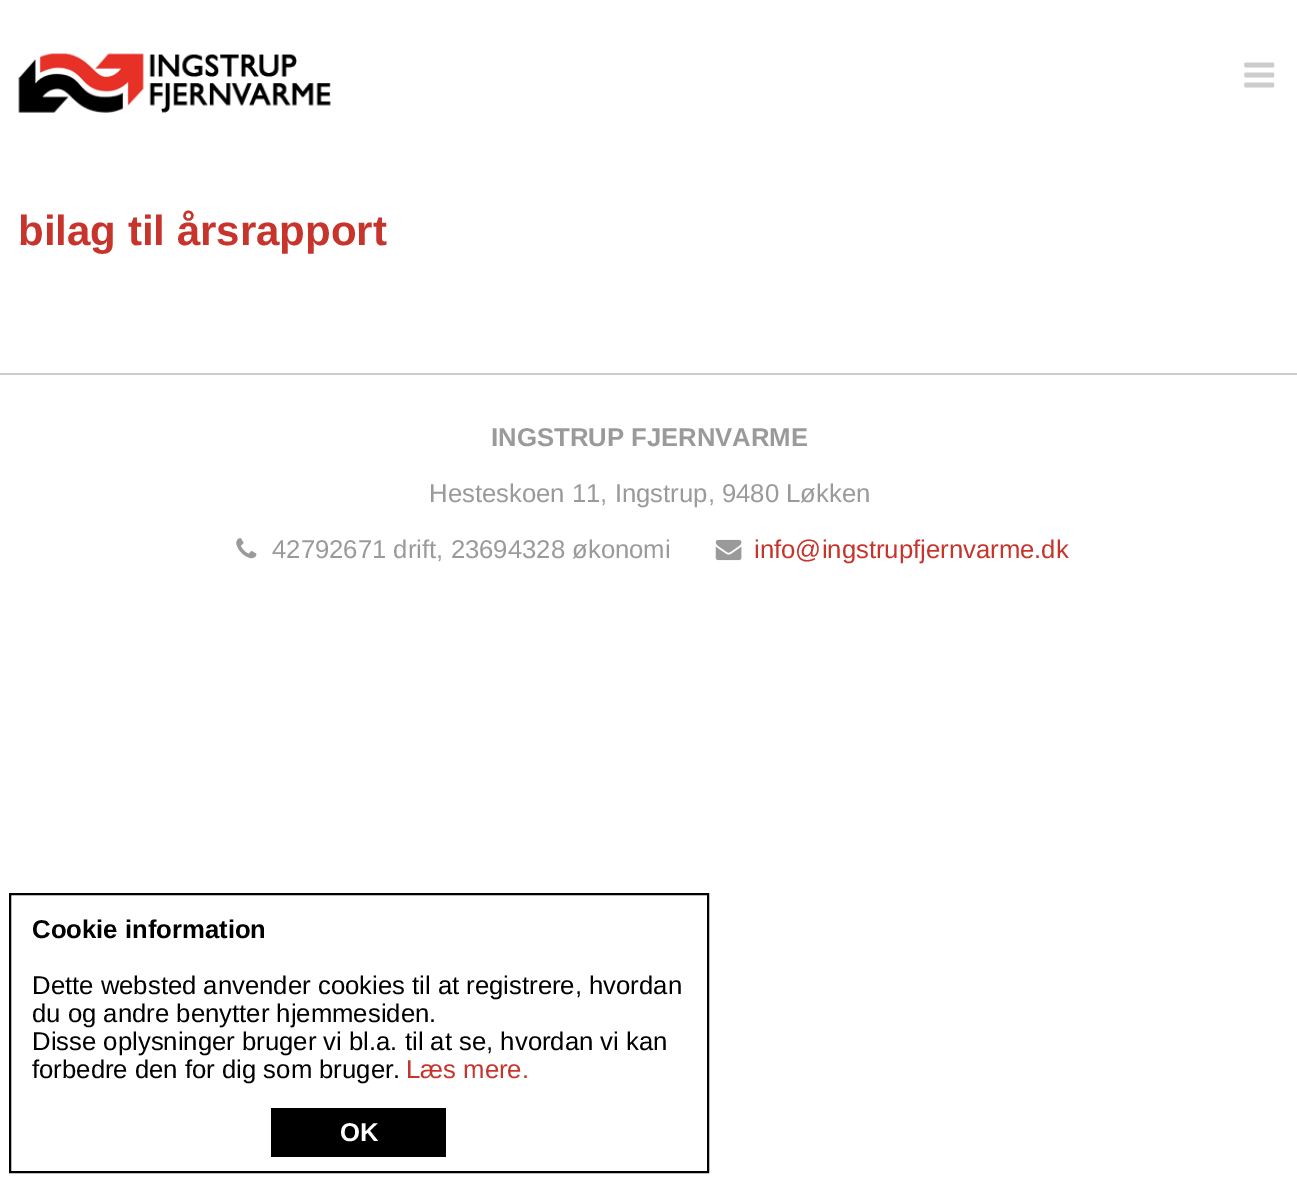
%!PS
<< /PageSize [1297 1180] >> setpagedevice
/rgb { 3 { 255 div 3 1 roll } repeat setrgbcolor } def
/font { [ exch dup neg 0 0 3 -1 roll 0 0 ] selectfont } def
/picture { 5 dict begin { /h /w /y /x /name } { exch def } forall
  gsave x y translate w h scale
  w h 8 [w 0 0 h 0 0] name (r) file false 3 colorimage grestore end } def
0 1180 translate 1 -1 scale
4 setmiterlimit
255 255 255 rgb
0 0 1297 1180 rectfill
(img/1.rgb) 18 53 313 60 picture
(img/2.rgb) 1244 62 31 26 picture
204 204 204 rgb
0 373 1297 2 rectfill
(img/3.rgb) 236 538 21 21 picture
(img/4.rgb) 715 539 27 22 picture
0 0 0 rgb
2 setlinewidth
10 894 698 278 rectstroke
271 1108 175 49 rectfill
/LiberationSans-Bold 42 font
199 52 44 rgb
18 245 moveto (bilag til årsrapport) show
/LiberationSans-Bold 25.7 font
154 154 154 rgb
491 446 moveto (INGSTRUP FJERNVARME) show
/LiberationSans-Regular 25.7 font
429 502 moveto (Hesteskoen 11, Ingstrup, 9480 Løkken) show
272 558 moveto (42792671 drift, 23694328 økonomi) show
199 52 44 rgb
754 558 moveto (info@ingstrupfjernvarme.dk) show
/LiberationSans-Bold 25.7 font
0 0 0 rgb
32 938 moveto (Cookie information) show
/LiberationSans-Regular 25.7 font
[
  [(Dette websted anvender cookies til at registrere, hvordan) 32 994]
  [(du og andre benytter hjemmesiden.) 32 1022]
  [(Disse oplysninger bruger vi bl.a. til at se, hvordan vi kan) 32 1050]
  [(forbedre den for dig som bruger.) 32 1078]
] { aload pop moveto show } forall
199 52 44 rgb
406 1078 moveto (Læs mere.) show
/LiberationSans-Bold 25.7 font
255 255 255 rgb
340 1141 moveto (OK) show
showpage
